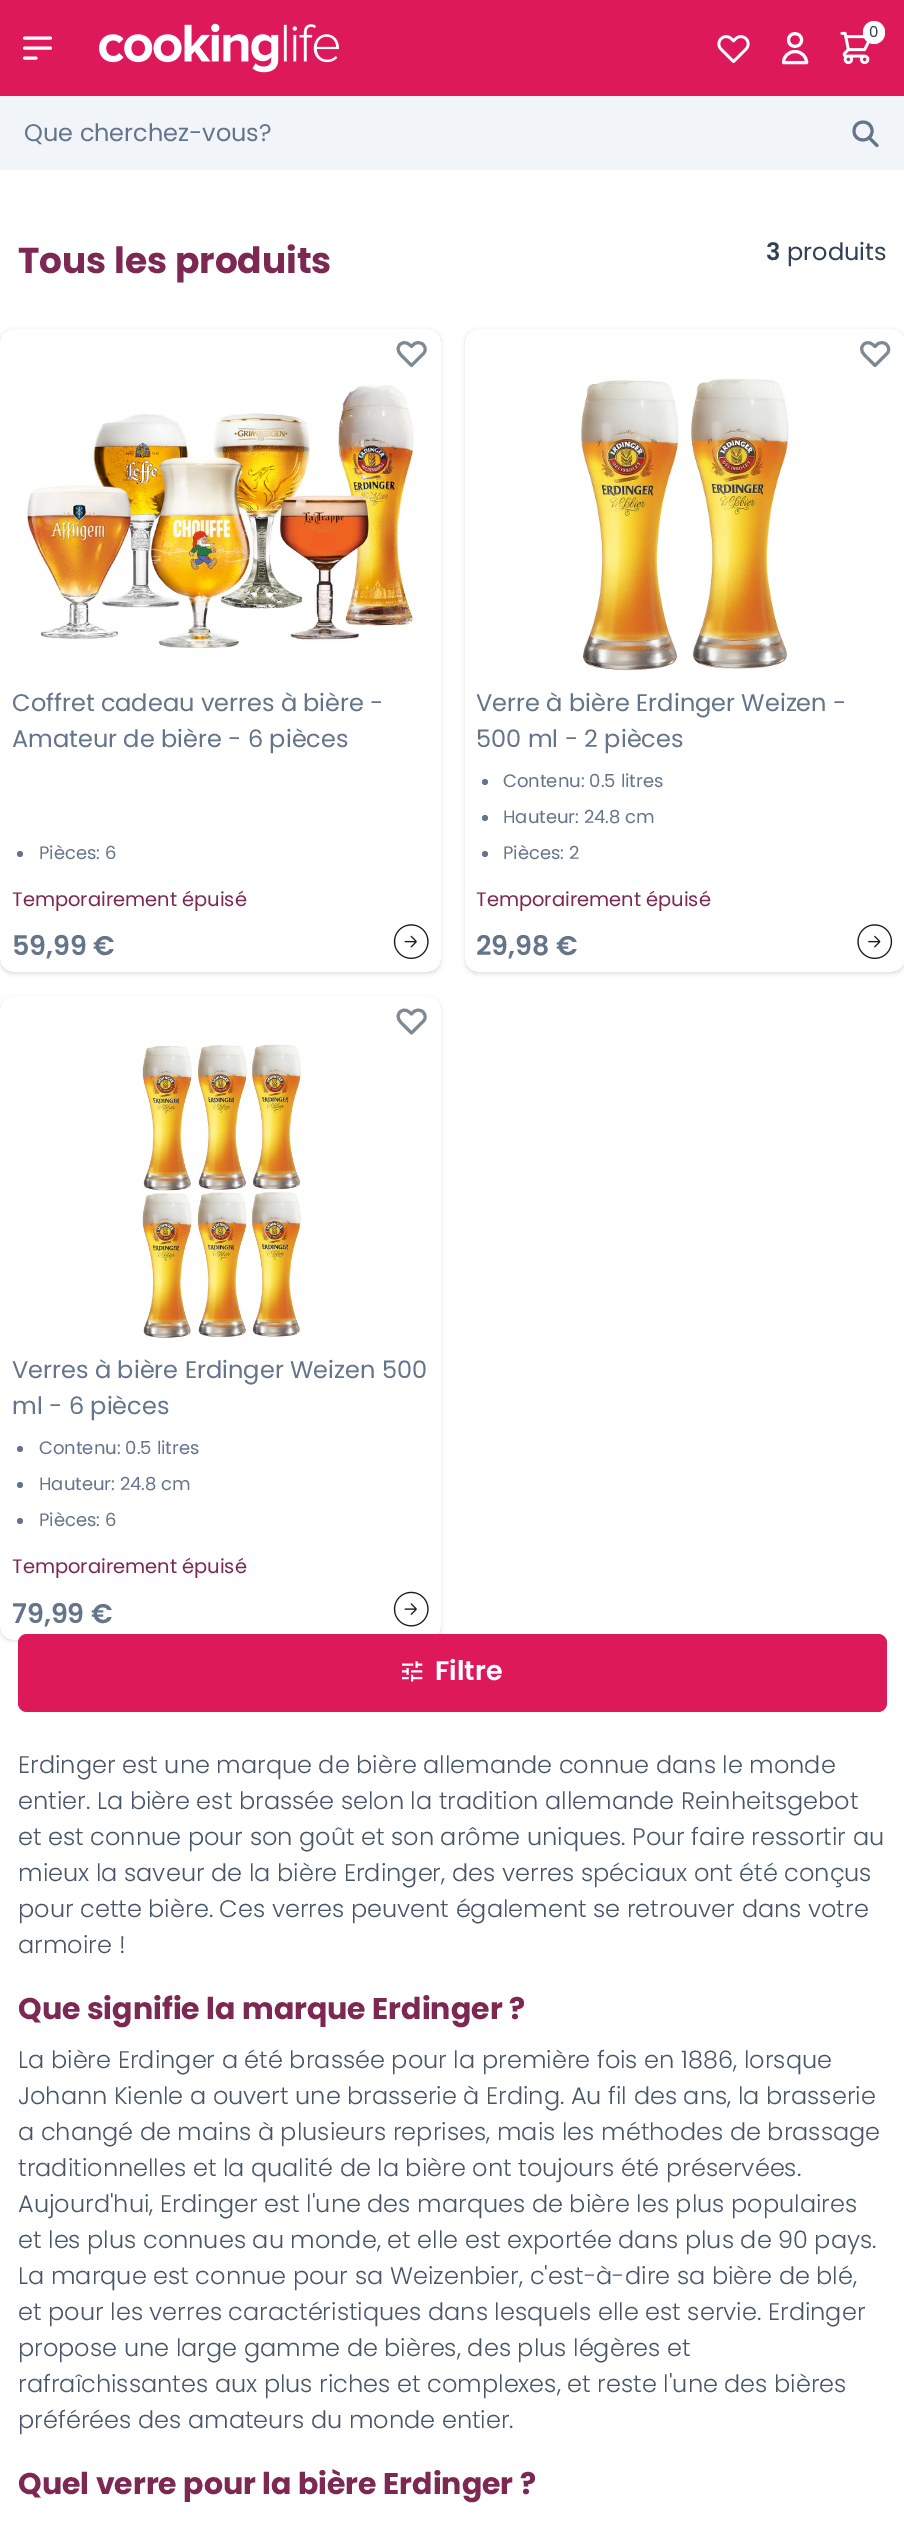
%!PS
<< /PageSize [904 2526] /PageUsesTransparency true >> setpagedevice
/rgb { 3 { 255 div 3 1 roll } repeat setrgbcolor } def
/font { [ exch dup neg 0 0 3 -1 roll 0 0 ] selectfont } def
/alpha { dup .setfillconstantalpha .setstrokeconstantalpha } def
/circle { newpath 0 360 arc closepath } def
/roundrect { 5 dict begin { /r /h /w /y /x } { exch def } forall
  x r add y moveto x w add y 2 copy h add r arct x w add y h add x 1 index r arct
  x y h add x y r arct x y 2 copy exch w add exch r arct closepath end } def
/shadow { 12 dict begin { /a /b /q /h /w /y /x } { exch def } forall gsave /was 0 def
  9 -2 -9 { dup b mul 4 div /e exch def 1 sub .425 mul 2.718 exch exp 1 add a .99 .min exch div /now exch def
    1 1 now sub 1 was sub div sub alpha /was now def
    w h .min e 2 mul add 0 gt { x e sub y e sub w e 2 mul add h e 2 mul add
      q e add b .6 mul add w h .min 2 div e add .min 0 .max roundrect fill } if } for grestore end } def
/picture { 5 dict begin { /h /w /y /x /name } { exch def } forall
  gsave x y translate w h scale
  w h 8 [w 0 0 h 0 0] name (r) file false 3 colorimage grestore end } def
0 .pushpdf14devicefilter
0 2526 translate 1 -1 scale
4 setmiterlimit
255 255 255 rgb
0 0 904 2526 rectfill
221 25 90 rgb
0 0 904 96 rectfill
(img/1.rgb) 99 23 240 50 picture
(img/2.rgb) 717 35 33 29 picture
255 255 255 rgb
3 setlinewidth
1 setlinecap
1 setlinejoin
801.5 40 moveto 801.5 48.5 788.5 48.5 788.5 40 curveto 788.5 31.5 801.5 31.5 801.5 40 curveto closepath 795 51.5 moveto 788.5 51.5 783.5 56.5 783.5 62.5 curveto 806.5 62.5 lineto 806.5 56.5 801.5 51.5 795 51.5 curveto closepath stroke
(img/3.rgb) 840 31 30 34 picture
863 21 22 23 11 roundrect fill
24.5 38 moveto 50.5 38 lineto 24.5 48 moveto 50.5 48 lineto 24.5 58 moveto 36 58 lineto stroke
241 245 249 rgb
0 96 904 74 rectfill
100 116 139 rgb
877 145.5 moveto 869 137.5 lineto 872 131 moveto 872 143 854 143 854 131 curveto 854 119 872 119 872 131 curveto closepath stroke
gsave
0 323 moveto 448 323 lineto 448 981 lineto 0 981 lineto closepath 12 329 moveto 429 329 lineto 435.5 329 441 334.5 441 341 curveto 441 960 lineto 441 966.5 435.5 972 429 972 curveto 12 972 lineto 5.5 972 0 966.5 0 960 curveto 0 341 lineto 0 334.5 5.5 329 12 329 curveto closepath eoclip newpath
222 226 230 rgb
0 330 441 644 12 2 1 shadow
grestore
125 138 146 rgb
400 344.5 moveto 395 350 400.5 354.5 404 358 curveto 411.5 365.5 lineto 423 354 lineto 426 351.5 426 347.5 423 344.5 curveto 420.5 342 416 342 413.5 344.5 curveto 411.5 346.5 lineto 408.5 343.5 404.5 340.5 400 344.5 curveto closepath stroke
(img/4.rgb) 25 384 390 265 picture
100 116 139 rgb
20 854 3 circle fill
(img/5.rgb) 393 924 36 35 picture
gsave
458 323 moveto 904 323 lineto 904 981 lineto 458 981 lineto closepath 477 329 moveto 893 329 lineto 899.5 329 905 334.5 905 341 curveto 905 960 lineto 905 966.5 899.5 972 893 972 curveto 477 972 lineto 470.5 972 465 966.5 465 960 curveto 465 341 lineto 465 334.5 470.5 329 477 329 curveto closepath eoclip newpath
222 226 230 rgb
465 330 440 644 12 2 1 shadow
grestore
125 138 146 rgb
863.5 344.5 moveto 858.5 350 864 354.5 867.5 358 curveto 875 365.5 lineto 886.5 354 lineto 889.5 351.5 889.5 347.5 886.5 344.5 curveto 884 342 879.5 342 877 344.5 curveto 875 346.5 lineto 872 343.5 868 340.5 863.5 344.5 curveto closepath stroke
(img/6.rgb) 581 378 208 293 picture
100 116 139 rgb
485 782 3 circle fill
485 818 3 circle fill
485 854 3 circle fill
(img/7.rgb) 857 924 36 35 picture
gsave
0 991 moveto 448 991 lineto 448 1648 lineto 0 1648 lineto closepath 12 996 moveto 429 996 lineto 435.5 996 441 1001.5 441 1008 curveto 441 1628 lineto 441 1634.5 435.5 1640 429 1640 curveto 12 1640 lineto 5.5 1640 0 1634.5 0 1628 curveto 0 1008 lineto 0 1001.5 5.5 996 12 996 curveto closepath eoclip newpath
222 226 230 rgb
0 998 441 643 12 2 1 shadow
grestore
125 138 146 rgb
400 1012 moveto 395 1017.5 400.5 1022 404 1025.5 curveto 411.5 1033 lineto 423 1021.5 lineto 426 1019 426 1015 423 1012 curveto 420.5 1009.5 416 1009.5 413.5 1012 curveto 411.5 1014 lineto 408.5 1011 404.5 1008 400 1012 curveto closepath stroke
(img/8.rgb) 142 1044 159 295 picture
100 116 139 rgb
20 1449 3 circle fill
20 1485 3 circle fill
20 1521 3 circle fill
(img/9.rgb) 393 1591 36 36 picture
221 25 90 rgb
18 1634 869 78 9 roundrect fill
(img/10.rgb) 402 1661 21 21 picture
/Poppins-Regular 15 font
51 65 85 rgb
869 37 moveto (0) show
/Poppins-Regular 24 font
100 116 139 rgb
24 141 moveto (Que cherchez-vous?) show
/Poppins-Bold 36 font
124 40 82 rgb
18 273 moveto (Tous les produits) show
/Poppins-SemiBold 24 font
51 65 85 rgb
766 260 moveto (3) show
/Poppins-Regular 24 font
787 260 moveto (produits) show
100 116 139 rgb
12 711 moveto (Coffret cadeau verres à bière -) show
12 747 moveto (Amateur de bière - 6 pièces) show
/Poppins-Regular 18 font
39 859 moveto (Pièces: 6) show
/Poppins-Regular 19.5 font
124 40 82 rgb
12 906 moveto (Temporairement épuisé) show
/Poppins-SemiBold 27 font
100 116 139 rgb
12 955 moveto (59,99 €) show
/Poppins-Regular 24 font
476 711 moveto (Verre à bière Erdinger Weizen -) show
476 747 moveto (500 ml - 2 pièces) show
/Poppins-Regular 18 font
[
  [(Contenu: 0.5 litres) 503 787]
  [(Hauteur: 24.8 cm) 503 823]
  [(Pièces: 2) 503 859]
] { aload pop moveto show } forall
/Poppins-Regular 19.5 font
124 40 82 rgb
476 906 moveto (Temporairement épuisé) show
/Poppins-SemiBold 27 font
100 116 139 rgb
476 955 moveto (29,98 €) show
/Poppins-Regular 24 font
12 1378 moveto (Verres à bière Erdinger Weizen 500) show
12 1414 moveto (ml - 6 pièces) show
/Poppins-Regular 18 font
[
  [(Contenu: 0.5 litres) 39 1454]
  [(Hauteur: 24.8 cm) 39 1490]
  [(Pièces: 6) 39 1526]
] { aload pop moveto show } forall
/Poppins-Regular 19.5 font
124 40 82 rgb
12 1573 moveto (Temporairement épuisé) show
/Poppins-SemiBold 27 font
100 116 139 rgb
12 1623 moveto (79,99 €) show
255 255 255 rgb
435 1680 moveto (Filtre) show
/Poppins-Light 24 font
71 85 105 rgb
[
  [(Erdinger est une marque de bière allemande connue dans le monde) 18 1773]
  [(entier. La bière est brassée selon la tradition allemande Reinheitsgebot) 18 1809]
  [(et est connue pour son goût et son arôme uniques. Pour faire ressortir au) 18 1845]
  [(mieux la saveur de la bière Erdinger, des verres spéciaux ont été conçus) 18 1881]
  [(pour cette bière. Ces verres peuvent également se retrouver dans votre) 18 1917]
  [(armoire !) 18 1953]
] { aload pop moveto show } forall
/Poppins-Bold 30 font
124 40 82 rgb
18 2019 moveto (Que signifie la marque Erdinger ?) show
/Poppins-Light 24 font
71 85 105 rgb
[
  [(La bière Erdinger a été brassée pour la première fois en 1886, lorsque) 18 2068]
  [(Johann Kienle a ouvert une brasserie à Erding. Au fil des ans, la brasserie) 18 2104]
  [(a changé de mains à plusieurs reprises, mais les méthodes de brassage) 18 2140]
  [(traditionnelles et la qualité de la bière ont toujours été préservées.) 18 2176]
  [(Aujourd'hui, Erdinger est l'une des marques de bière les plus populaires) 18 2212]
  [(et les plus connues au monde, et elle est exportée dans plus de 90 pays.) 18 2248]
  [(La marque est connue pour sa Weizenbier, c'est-à-dire sa bière de blé,) 18 2284]
  [(et pour les verres caractéristiques dans lesquels elle est servie. Erdinger) 18 2320]
  [(propose une large gamme de bières, des plus légères et) 18 2356]
  [(rafraîchissantes aux plus riches et complexes, et reste l'une des bières) 18 2392]
  [(préférées des amateurs du monde entier.) 18 2428]
] { aload pop moveto show } forall
/Poppins-Bold 30 font
124 40 82 rgb
18 2494 moveto (Quel verre pour la bière Erdinger ?) show
.poppdf14devicefilter showpage
